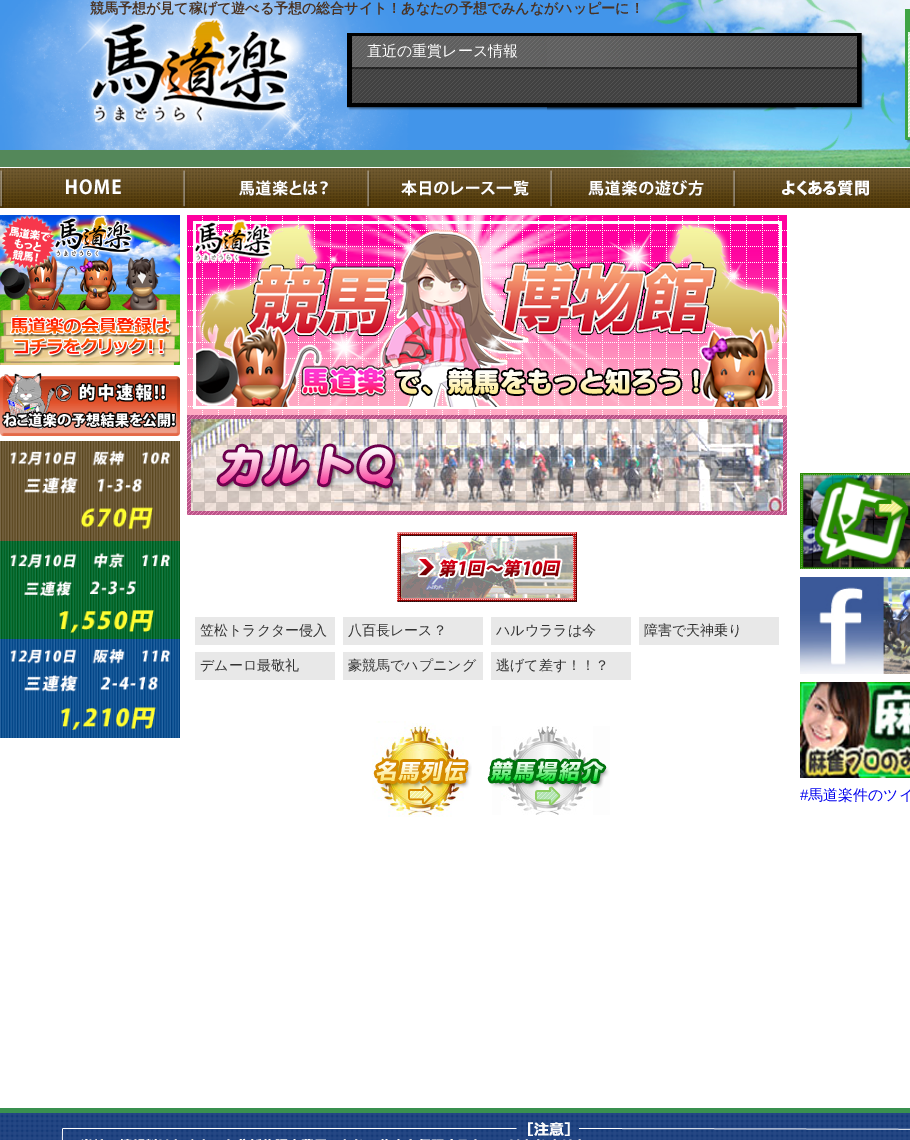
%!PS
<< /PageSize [910 1140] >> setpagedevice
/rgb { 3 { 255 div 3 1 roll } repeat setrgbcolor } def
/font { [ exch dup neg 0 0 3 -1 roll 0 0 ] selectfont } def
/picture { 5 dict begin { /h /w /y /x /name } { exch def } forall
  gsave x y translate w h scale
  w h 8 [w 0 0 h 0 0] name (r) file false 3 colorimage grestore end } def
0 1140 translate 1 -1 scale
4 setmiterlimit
255 255 255 rgb
0 0 910 1140 rectfill
(img/1.rgb) 0 167 910 1 picture
(img/2.rgb) 0 0 910 167 picture
(img/3.rgb) 905 9 5 134 picture
(img/4.rgb) 86 13 208 114 picture
(img/5.rgb) 347 33 518 78 picture
(img/6.rgb) 0 168 184 40 picture
(img/7.rgb) 184 168 184 40 picture
(img/8.rgb) 368 168 183 40 picture
(img/9.rgb) 551 168 183 40 picture
(img/10.rgb) 734 168 176 40 picture
(img/11.rgb) 0 215 180 150 picture
(img/12.rgb) 0 373 180 63 picture
(img/13.rgb) 0 441 180 297 picture
(img/14.rgb) 187 215 600 200 picture
(img/15.rgb) 187 415 600 100 picture
(img/16.rgb) 397 532 180 70 picture
[
  [195 617 140 28 232 232 232]
  [343 617 140 28 232 232 232]
  [491 617 140 28 232 232 232]
  [639 617 140 28 232 232 232]
  [195 652 140 28 232 232 232]
  [343 652 140 28 232 232 232]
  [491 652 140 28 232 232 232]
] { aload pop rgb rectfill } forall
(img/17.rgb) 372 721 100 96 picture
(img/18.rgb) 487 726 123 89 picture
(img/19.rgb) 800 473 110 96 picture
(img/20.rgb) 800 577 110 97 picture
(img/21.rgb) 800 682 110 96 picture
(img/22.rgb) 0 1108 910 32 picture
(img/23.rgb) 61 1122 849 18 picture
/WenQuanYiZenHei-Bold 14 font
73 50 34 rgb
90 13 moveto (競馬予想が見て稼げて遊べる予想の総合サイト！あなたの予想でみんながハッピーに！) show
/WenQuanYiZenHei-Medium 15 font
255 255 255 rgb
367 56 moveto (直近の重賞レース情報) show
/WenQuanYiZenHei-Medium 14 font
51 51 51 rgb
[
  [(笠松トラクター侵入) 200 635]
  [(八百長レース？) 348 635]
  [(ハルウララは今) 496 635]
  [(障害で天神乗り) 644 635]
  [(デムーロ最敬礼) 200 670]
  [(豪競馬でハプニング) 348 670]
  [(逃げて差す！！？) 496 670]
] { aload pop moveto show } forall
/LiberationSans-Regular 15 font
0 0 238 rgb
800 800 moveto (#) show
/WenQuanYiZenHei-Medium 15 font
808 800 moveto (馬道楽件のツイ) show
showpage
